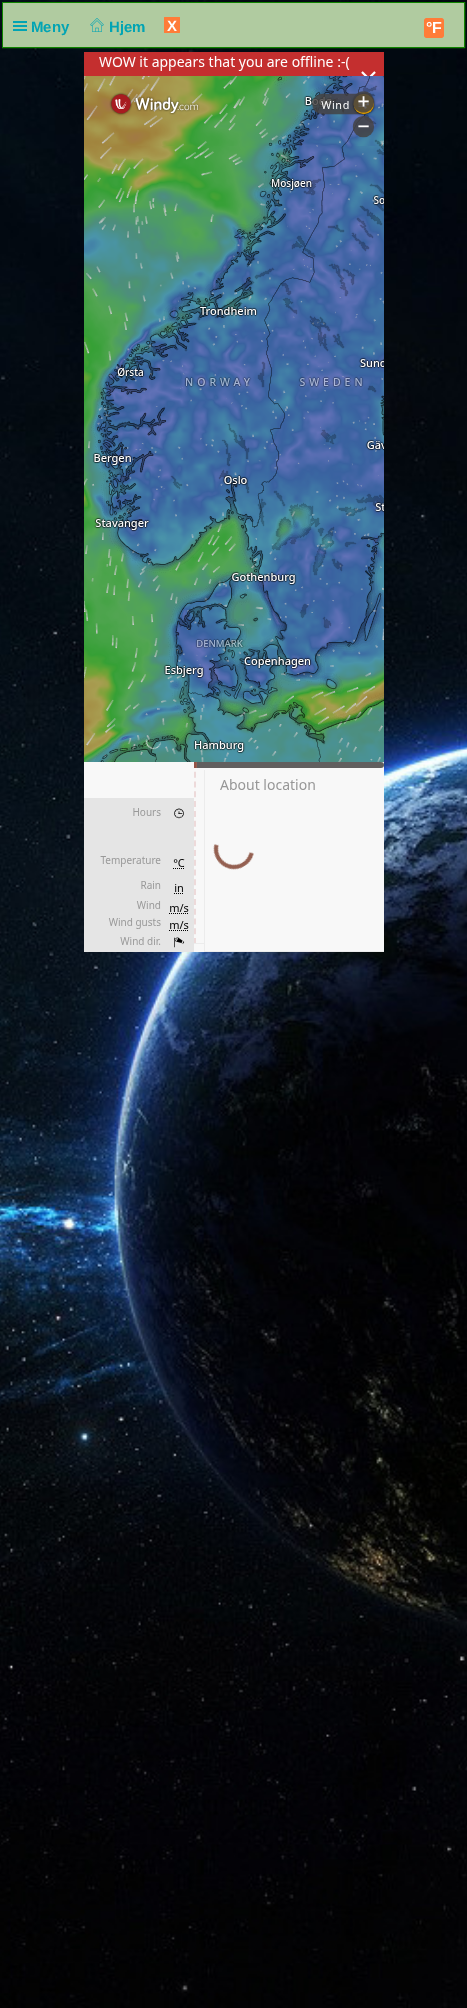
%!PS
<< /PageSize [467 2008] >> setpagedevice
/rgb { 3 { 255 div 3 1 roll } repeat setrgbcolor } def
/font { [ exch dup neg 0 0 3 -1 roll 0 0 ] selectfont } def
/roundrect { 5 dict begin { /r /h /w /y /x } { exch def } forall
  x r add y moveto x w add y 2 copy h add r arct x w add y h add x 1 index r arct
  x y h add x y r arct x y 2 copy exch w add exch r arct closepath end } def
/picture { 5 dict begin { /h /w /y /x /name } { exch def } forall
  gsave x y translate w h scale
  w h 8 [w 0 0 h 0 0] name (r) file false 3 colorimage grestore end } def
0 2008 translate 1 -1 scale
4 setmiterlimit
255 255 255 rgb
0 0 467 2008 rectfill
(img/1.rgb) 0 0 467 2008 picture
16 132 0 rgb
2.5 2.5 462 45 rectstroke
[
  [3 3 461 44 176 203 160]
  [13 21 14 2 1 164 180]
  [13 25 14 2 1 164 180]
  [13 29 14 2 1 164 180]
] { aload pop rgb rectfill } forall
(img/2.rgb) 90 18 14 14 picture
255 124 57 rgb
164 17 16 16 1 roundrect fill
424 18 20 20 3 roundrect fill
(img/3.rgb) 84 52 300 900 picture
(img/4.rgb) 145 733 109 137 picture
/LiberationSans-Bold 15 font
1 164 180 rgb
31 32 moveto (Meny) show
109 32 moveto (Hjem) show
255 255 255 rgb
167 31 moveto (X) show
/LiberationSans-Bold 16 font
426 33 moveto (°F) show
showpage
